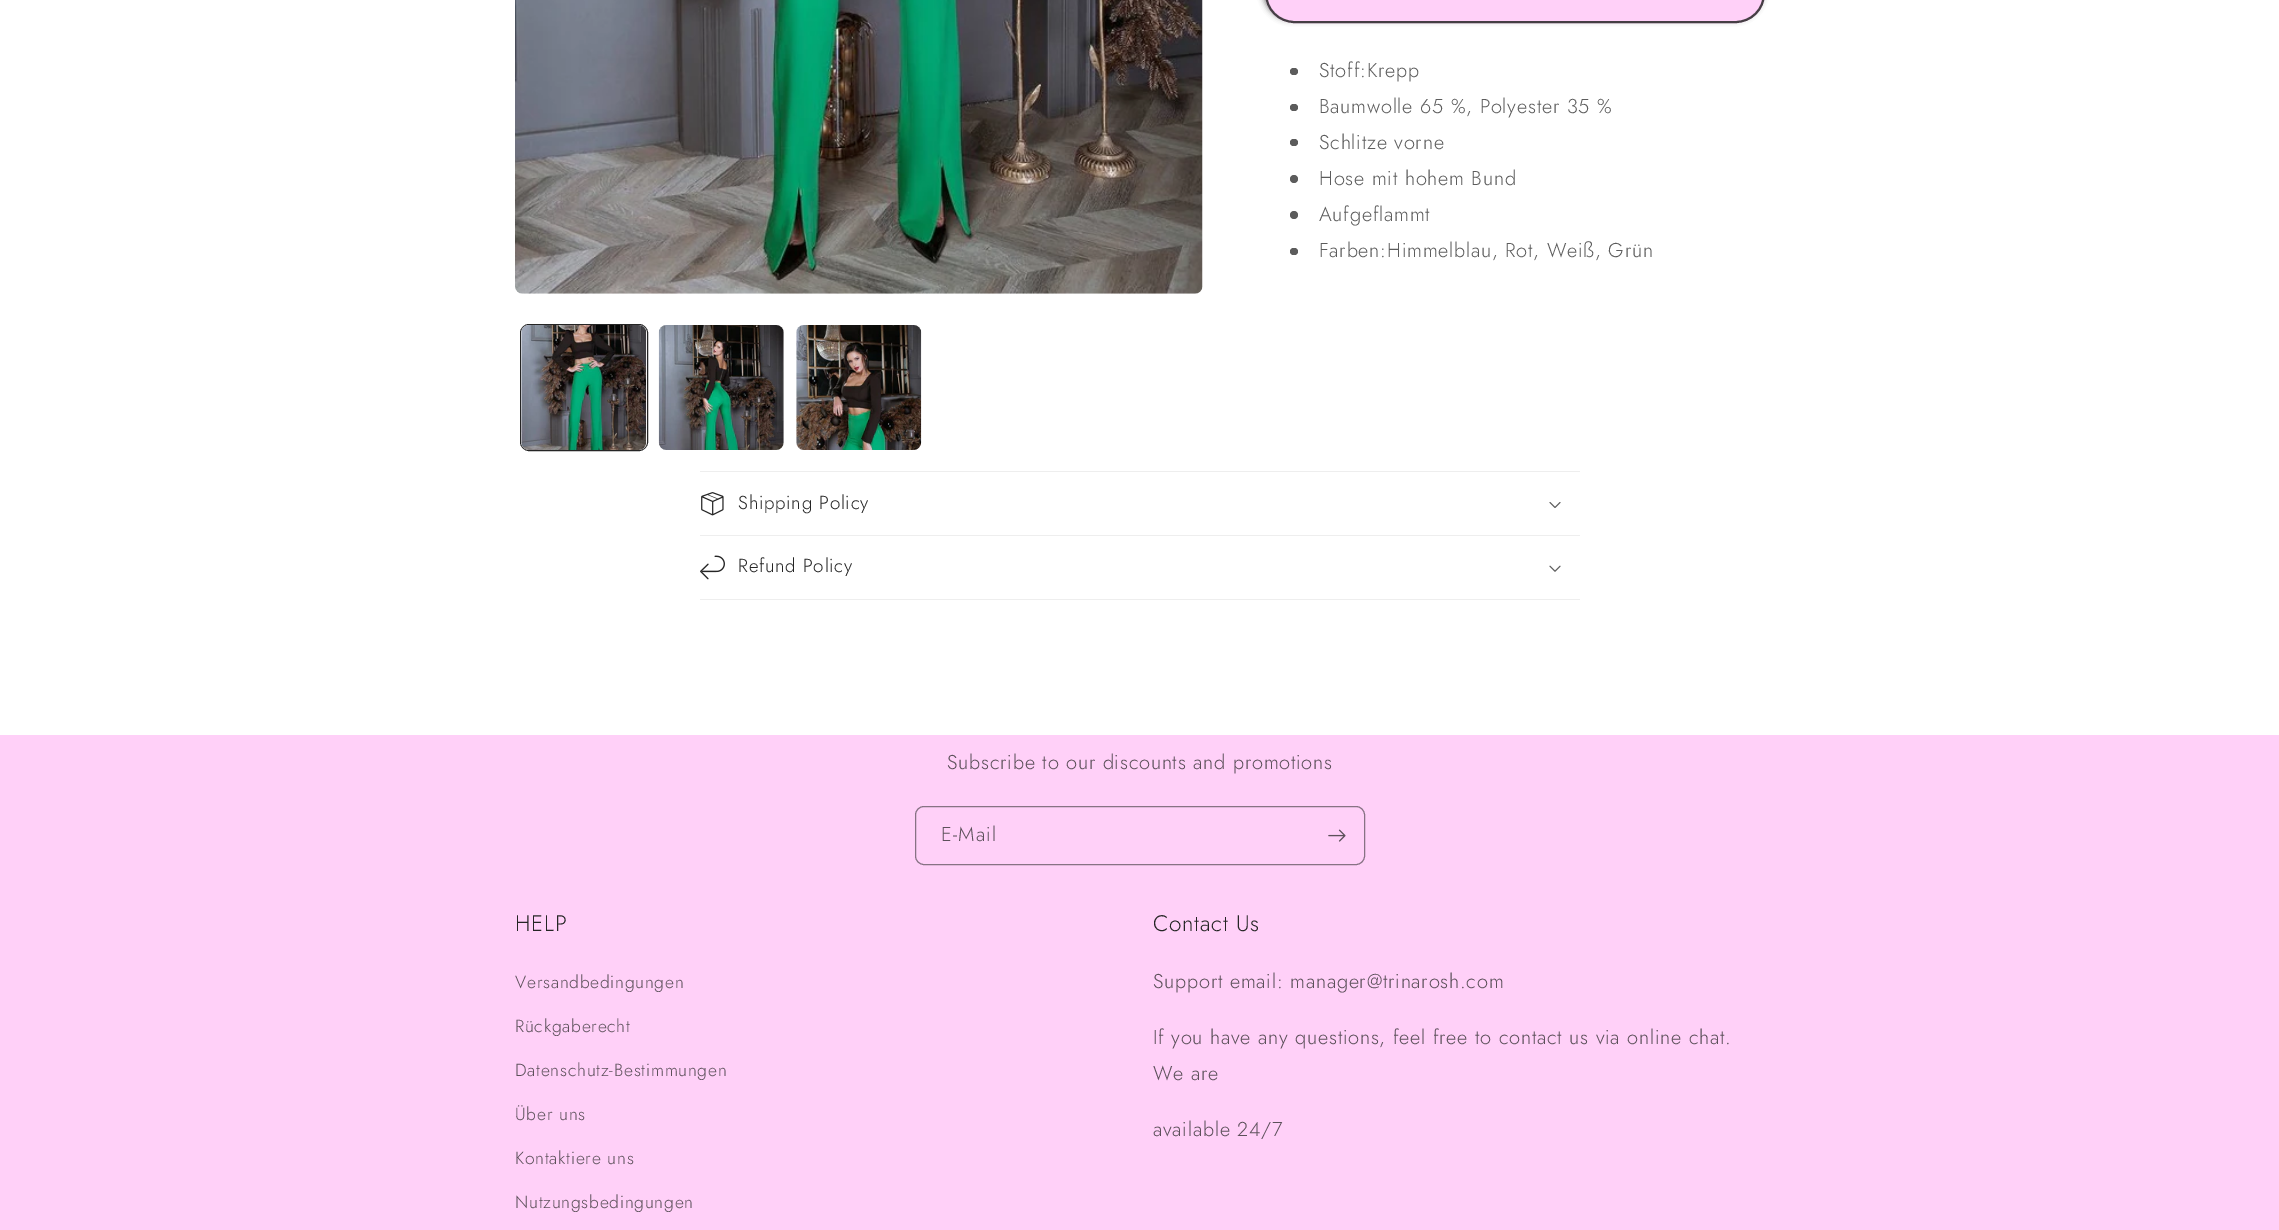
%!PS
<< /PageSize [2279 1230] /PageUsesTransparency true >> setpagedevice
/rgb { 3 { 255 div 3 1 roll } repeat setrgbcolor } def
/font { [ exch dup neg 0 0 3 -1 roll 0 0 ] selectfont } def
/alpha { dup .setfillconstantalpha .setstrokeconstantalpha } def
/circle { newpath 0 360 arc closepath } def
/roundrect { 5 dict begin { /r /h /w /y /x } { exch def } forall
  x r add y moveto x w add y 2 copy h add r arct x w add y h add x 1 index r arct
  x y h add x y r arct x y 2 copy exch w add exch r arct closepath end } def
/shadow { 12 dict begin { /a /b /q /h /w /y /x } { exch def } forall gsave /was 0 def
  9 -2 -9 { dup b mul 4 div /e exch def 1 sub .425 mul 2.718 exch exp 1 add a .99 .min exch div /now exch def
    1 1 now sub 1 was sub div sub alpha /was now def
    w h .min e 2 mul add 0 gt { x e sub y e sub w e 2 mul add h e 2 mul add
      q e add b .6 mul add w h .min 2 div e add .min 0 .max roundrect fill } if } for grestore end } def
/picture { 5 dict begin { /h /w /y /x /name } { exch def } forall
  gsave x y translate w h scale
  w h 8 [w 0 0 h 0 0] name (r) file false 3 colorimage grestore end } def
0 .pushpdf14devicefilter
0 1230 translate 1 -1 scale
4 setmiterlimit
255 255 255 rgb
0 0 2279 1230 rectfill
(img/1.rgb) 515 0 688 294 picture
37 37 37 rgb
520.5 324.5 127 126 8.5 roundrect stroke
(img/2.rgb) 521 325 126 125 picture
(img/3.rgb) 658 325 126 125 picture
(img/4.rgb) 796 325 126 125 picture
1263 -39 500 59 29.5 3 0.6 shadow
255 208 248 rgb
1265.5 -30.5 499 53 29 roundrect gsave fill grestore
stroke
0.85 alpha
37 37 37 rgb
2 setlinewidth
1266 -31 498 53 28.5 roundrect stroke
1 alpha
92 92 92 rgb
1290 68 8 7 3.5 roundrect fill
1290 104 8 7 3.5 roundrect fill
1290 139 8 7 3.5 roundrect fill
1294 179 4 circle fill
1294 215 4 circle fill
1290 248 8 7 3.5 roundrect fill
238 238 238 rgb
700 471 880 1 rectfill
700 535 880 1 rectfill
(img/5.rgb) 701 492 23 24 picture
(img/6.rgb) 1549 502 12 6 picture
700 599 880 1 rectfill
(img/7.rgb) 700 555 25 25 picture
(img/8.rgb) 1549 565 12 7 picture
255 208 248 rgb
0 735 2279 495 rectfill
135 114 132 rgb
1 setlinewidth
915.5 806.5 449 58 8.5 roundrect stroke
(img/9.rgb) 1328 829 18 13 picture
/Jost-Light 20 font
92 92 92 rgb
1319 77 moveto 0.75 0 (Stoff:Krepp) ashow
1319 113 moveto 0.75 0 (Baumwolle 65 %, Polyester 35 %) ashow
1319 149 moveto 0.75 0 (Schlitze vorne) ashow
1319 185 moveto 0.75 0 (Hose mit hohem Bund) ashow
1319 221 moveto 0.75 0 (Aufgeflammt) ashow
1319 257 moveto 0.75 0 (Farben:Himmelblau, Rot, Weiß, Grün) ashow
/Jost-Light 18.75 font
37 37 37 rgb
738 509 moveto 0.75 0 (Shipping Policy) ashow
738 572 moveto 0.75 0 (Refund Policy) ashow
/Jost-Light 20 font
92 80 90 rgb
947 769 moveto 0.75 0 (Subscribe to our discounts and promotions) ashow
941 841 moveto 1.25 0 (E-Mail) ashow
/Jost-Light 22.5 font
37 37 37 rgb
515 931 moveto 0.75 0 (HELP) ashow
/Jost-Light 17.5 font
92 80 90 rgb
515 988 moveto 0.75 0 (Versandbedingungen) ashow
515 1032 moveto 0.75 0 (Rückgaberecht) ashow
515 1076 moveto 0.75 0 (Datenschutz-Bestimmungen) ashow
515 1120 moveto 0.75 0 (Über uns) ashow
515 1164 moveto 0.75 0 (Kontaktiere uns) ashow
515 1208 moveto 0.75 0 (Nutzungsbedingungen) ashow
/Jost-Light 22.5 font
37 37 37 rgb
1153 931 moveto 0.75 0 (Contact Us) ashow
/Jost-Light 20 font
92 80 90 rgb
1153 988 moveto 0.75 0 (Support email: manager@trinarosh.com) ashow
1153 1044 moveto 0.75 0 (If you have any questions, feel free to contact us via online chat.) ashow
1153 1080 moveto 0.75 0 (We are) ashow
1153 1136 moveto 0.75 0 (available 24/7) ashow
.poppdf14devicefilter showpage
